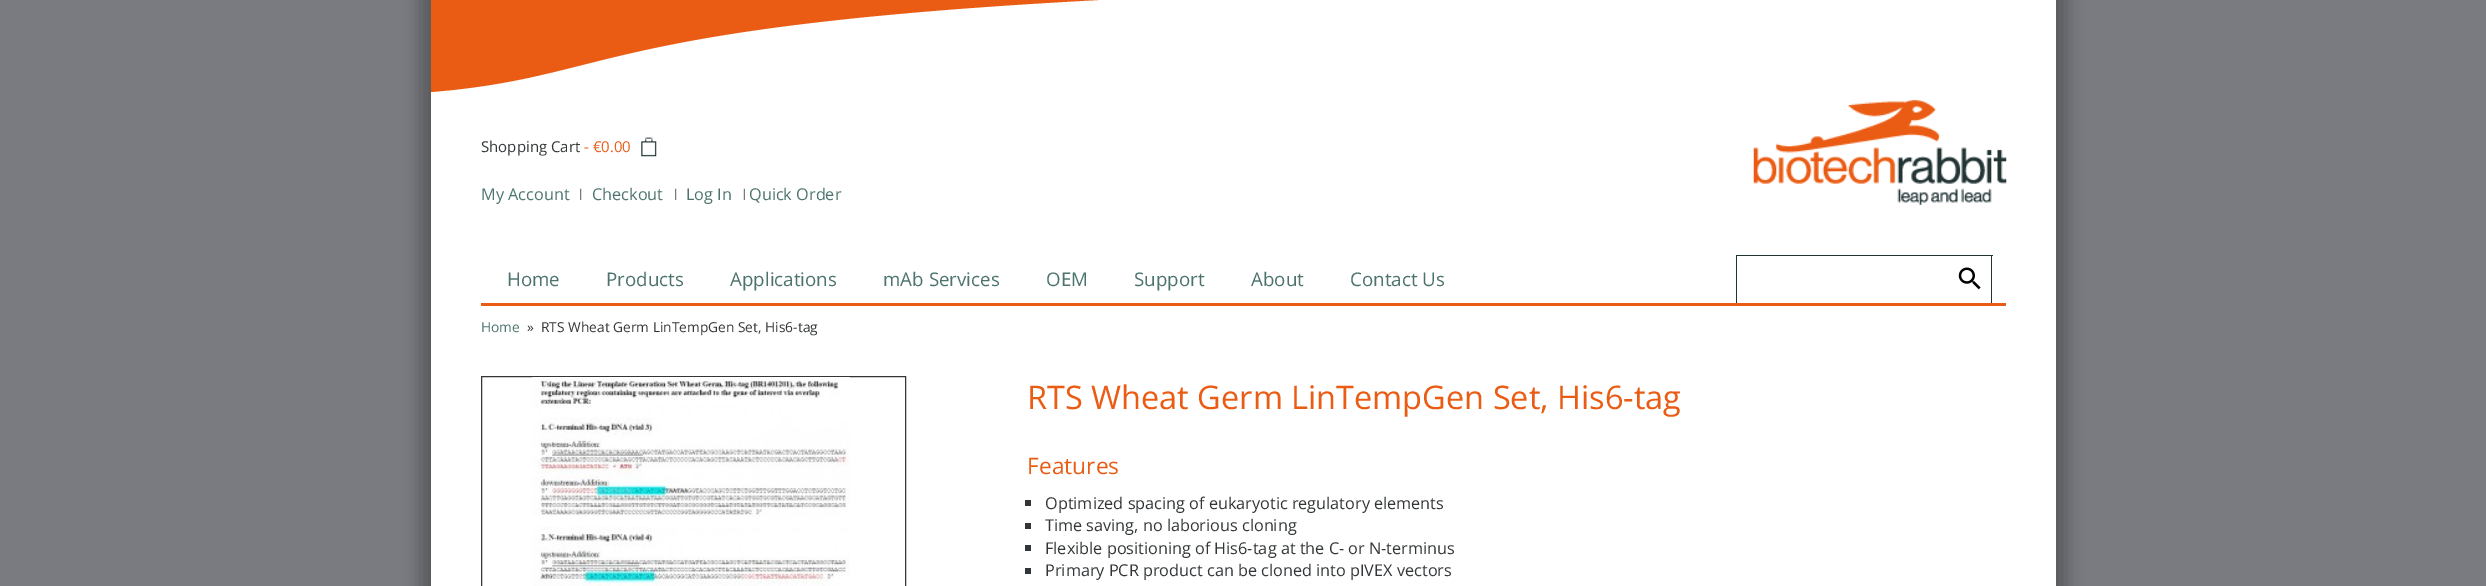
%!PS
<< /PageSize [2486 586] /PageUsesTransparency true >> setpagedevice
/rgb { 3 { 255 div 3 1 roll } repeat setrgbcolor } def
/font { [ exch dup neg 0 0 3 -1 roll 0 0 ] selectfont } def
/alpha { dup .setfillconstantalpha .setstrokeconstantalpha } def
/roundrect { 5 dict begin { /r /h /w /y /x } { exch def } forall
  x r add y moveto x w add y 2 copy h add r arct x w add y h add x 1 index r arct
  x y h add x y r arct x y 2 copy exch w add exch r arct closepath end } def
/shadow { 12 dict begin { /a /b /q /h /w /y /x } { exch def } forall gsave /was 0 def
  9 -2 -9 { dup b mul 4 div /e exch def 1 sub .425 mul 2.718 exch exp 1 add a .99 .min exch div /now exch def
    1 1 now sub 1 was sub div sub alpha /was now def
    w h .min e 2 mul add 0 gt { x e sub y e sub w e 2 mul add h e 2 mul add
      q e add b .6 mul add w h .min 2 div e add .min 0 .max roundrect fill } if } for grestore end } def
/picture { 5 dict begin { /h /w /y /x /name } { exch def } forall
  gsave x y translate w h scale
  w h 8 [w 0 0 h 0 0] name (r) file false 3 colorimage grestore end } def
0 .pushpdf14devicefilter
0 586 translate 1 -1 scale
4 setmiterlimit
122 123 129 rgb
0 0 2486 586 rectfill
0 0 0 rgb
421 -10 1645 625 0 9.5 0.3 shadow
255 255 255 rgb
431 0 1625 586 rectfill
234 92 19 rgb
431 92 moveto 613 77 591 27 1098 0 curveto 431 0 lineto closepath fill
(img/1.rgb) 641 137 16 20 picture
(img/2.rgb) 580 188 2 12 picture
(img/2.rgb) 675 188 2 12 picture
(img/3.rgb) 743 188 2 12 picture
(img/4.rgb) 1753 100 254 105 picture
[
  [481 303 1525 3 234 92 19]
  [1736 255 257 1 35 52 53]
  [1991 255 1 48 35 52 53]
  [1736 255 1 48 35 52 53]
] { aload pop rgb rectfill } forall
(img/5.rgb) 1958 267 23 23 picture
51 54 56 rgb
481.5 376.5 424 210 rectstroke
(img/6.rgb) 532 377 318 209 picture
[
  [1025 500 6 6 51 54 56]
  [1025 523 6 6 51 54 56]
  [1025 545 6 6 51 54 56]
  [1025 568 6 6 51 54 56]
] { aload pop rgb rectfill } forall
/OpenSans-Regular 15 font
481 152 moveto (Shopping Cart) show
234 92 19 rgb
584 152 moveto (- €0.00) show
/OpenSans-Regular 16.25 font
76 115 110 rgb
[
  [(My Account) 481 200]
  [(Checkout) 592 200]
  [(Log In) 686 200]
  [(Quick Order) 749 200]
] { aload pop moveto show } forall
/OpenSans-Regular 18.75 font
[
  [(Home) 507 286]
  [(Products) 606 286]
  [(Applications) 730 286]
  [(mAb Services) 883 286]
  [(OEM) 1046 286]
  [(Support) 1134 286]
  [(About) 1251 286]
  [(Contact Us) 1350 286]
] { aload pop moveto show } forall
/OpenSans-Regular 13.75 font
481 332 moveto (Home) show
51 54 56 rgb
527 332 moveto (») show
541 332 moveto (RTS Wheat Germ LinTempGen Set, His6-tag) show
/OpenSans-Regular 32.5 font
234 92 19 rgb
1027 409 moveto (RTS Wheat Germ LinTempGen Set, His6-tag) show
/OpenSans-Regular 22.75 font
1027 474 moveto (Features) show
/OpenSans-Regular 16.25 font
51 54 56 rgb
[
  [(Optimized spacing of eukaryotic regulatory elements) 1045 509]
  [(Time saving, no laborious cloning) 1045 531]
  [(Flexible positioning of His6-tag at the C- or N-terminus) 1045 554]
  [(Primary PCR product can be cloned into pIVEX vectors) 1045 576]
] { aload pop moveto show } forall
.poppdf14devicefilter showpage
